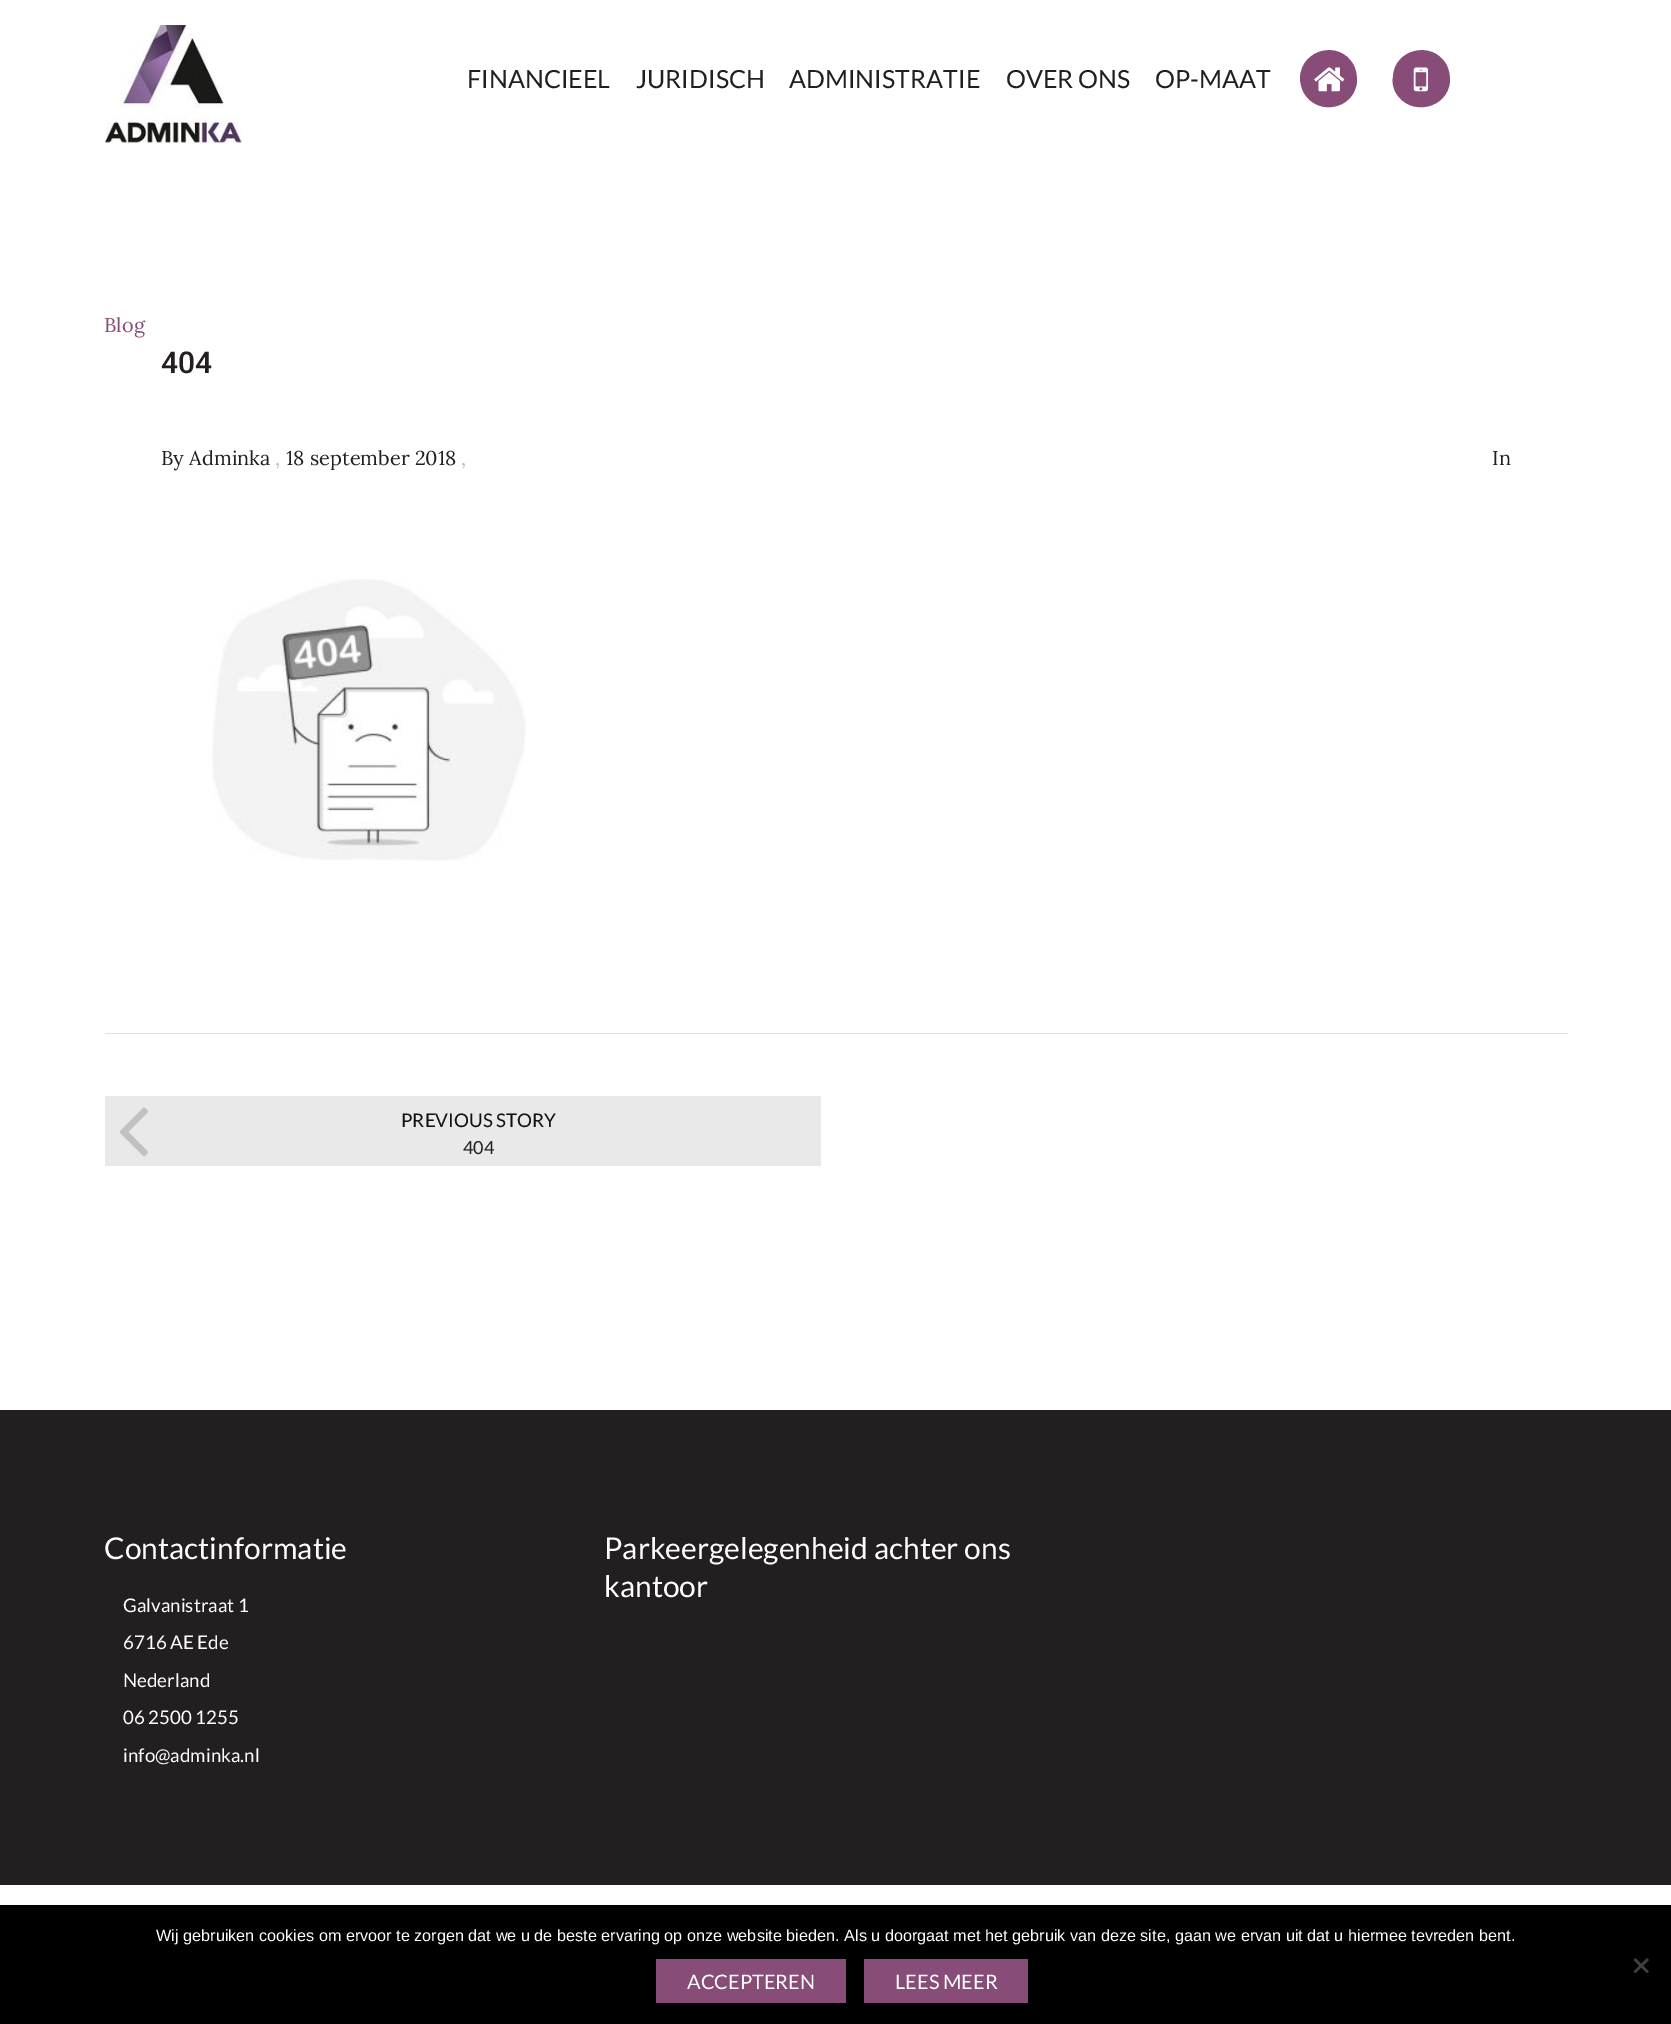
%!PS
<< /PageSize [1671 2024] >> setpagedevice
/rgb { 3 { 255 div 3 1 roll } repeat setrgbcolor } def
/font { [ exch dup neg 0 0 3 -1 roll 0 0 ] selectfont } def
/picture { 5 dict begin { /h /w /y /x /name } { exch def } forall
  gsave x y translate w h scale
  w h 8 [w 0 0 h 0 0] name (r) file false 3 colorimage grestore end } def
0 2024 translate 1 -1 scale
4 setmiterlimit
255 255 255 rgb
0 0 1671 2024 rectfill
(img/1.rgb) 105 25 137 118 picture
135 76 120 rgb
1353 64 moveto 1356 69 1357 75 1357 81 curveto 1355 109 1318 117 1304 93 curveto 1301 88 1300 82 1300 77 curveto 1302 49 1339 40 1353 64 curveto closepath fill
(img/2.rgb) 1314 67 31 25 picture
1446 64 moveto 1449 69 1450 75 1450 81 curveto 1448 109 1410 117 1396 93 curveto 1393 88 1392 82 1393 77 curveto 1394 49 1432 40 1446 64 curveto closepath fill
(img/3.rgb) 1413 67 16 25 picture
222 224 225 rgb
105 1033 1463 1 rectfill
(img/4.rgb) 212 579 314 282 picture
233 233 233 rgb
105 1096 716 70 rectfill
(img/5.rgb) 119 1107 29 50 picture
35 31 32 rgb
0 1410 1671 475 rectfill
0 0 0 rgb
0 1905 1671 119 rectfill
64 64 64 rgb
1647 1958 moveto 1649 1960 lineto 1635.5 1973 lineto 1633.5 1971.5 lineto closepath fill
1633.5 1960 moveto 1635.5 1958 lineto 1649 1971.5 lineto 1647 1973 lineto closepath fill
135 76 120 rgb
656 1959 190 44 rectfill
864 1959 164 44 rectfill
/Lato-Regular 25 font
35 31 32 rgb
[
  [(FINANCIEEL) 467 88]
  [(JURIDISCH) 636 88]
  [(ADMINISTRATIE) 789 88]
  [(OVER ONS) 1006 88]
  [(OP-MAAT) 1155 88]
] { aload pop moveto show } forall
/Lora-Regular 20 font
135 76 120 rgb
104 332 moveto (Blog) show
/Roboto-Medium 30 font
35 31 32 rgb
161 373 moveto (404) show
/Lora-Regular 20 font
[
  [(By Adminka) 161 465]
  [(18 september 2018) 286 465]
  [(In) 1492 465]
] { aload pop moveto show } forall
182 184 185 rgb
275 465 moveto (,) show
461 465 moveto (,) show
/Lato-Regular 18.75 font
18 16 16 rgb
401 1127 moveto (PREVIOUS STORY) show
/Lato-Regular 18 font
35 31 32 rgb
463 1154 moveto (404) show
/Lato-Regular 30 font
255 255 255 rgb
104 1559 moveto (Contactinformatie) show
/Lato-Regular 18.75 font
[
  [(Galvanistraat 1) 123 1612]
  [(6716 AE Ede) 123 1649]
  [(Nederland) 123 1687]
  [(06 2500 1255) 123 1724]
  [(info@adminka.nl) 123 1762]
] { aload pop moveto show } forall
/Lato-Regular 30 font
604 1559 moveto (Parkeergelegenheid achter ons) show
604 1597 moveto (kantoor) show
/LiberationSans-Regular 16.25 font
156 1941 moveto (Wij gebruiken cookies om ervoor te zorgen dat we u de beste ervaring op onze website bieden. Als u doorgaat met het gebruik van deze site, gaan we ervan uit dat u hiermee tevreden bent.) show
/Lato-Regular 20 font
687 1989 moveto (ACCEPTEREN) show
895 1989 moveto (LEES MEER) show
showpage
